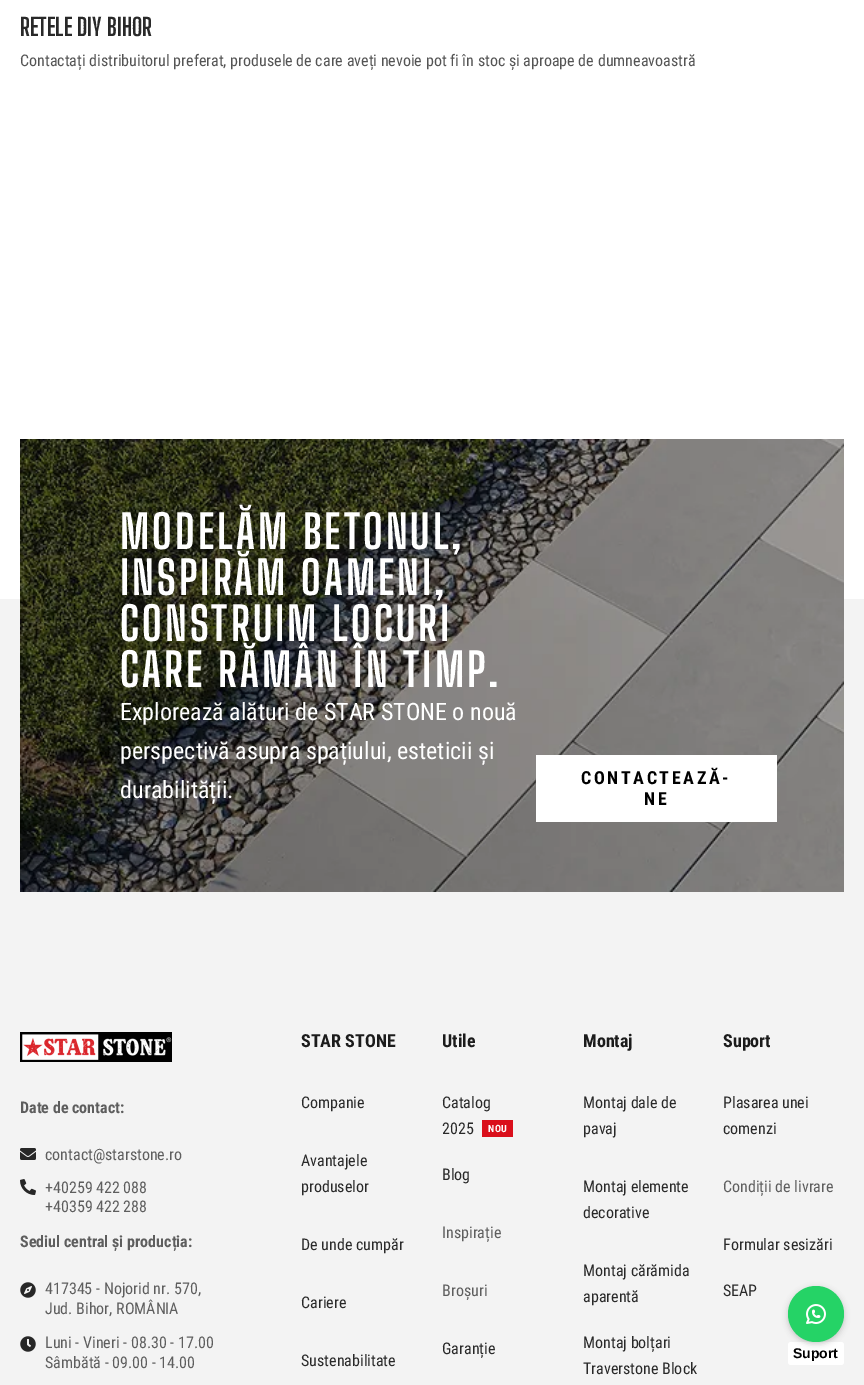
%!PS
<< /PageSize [864 1385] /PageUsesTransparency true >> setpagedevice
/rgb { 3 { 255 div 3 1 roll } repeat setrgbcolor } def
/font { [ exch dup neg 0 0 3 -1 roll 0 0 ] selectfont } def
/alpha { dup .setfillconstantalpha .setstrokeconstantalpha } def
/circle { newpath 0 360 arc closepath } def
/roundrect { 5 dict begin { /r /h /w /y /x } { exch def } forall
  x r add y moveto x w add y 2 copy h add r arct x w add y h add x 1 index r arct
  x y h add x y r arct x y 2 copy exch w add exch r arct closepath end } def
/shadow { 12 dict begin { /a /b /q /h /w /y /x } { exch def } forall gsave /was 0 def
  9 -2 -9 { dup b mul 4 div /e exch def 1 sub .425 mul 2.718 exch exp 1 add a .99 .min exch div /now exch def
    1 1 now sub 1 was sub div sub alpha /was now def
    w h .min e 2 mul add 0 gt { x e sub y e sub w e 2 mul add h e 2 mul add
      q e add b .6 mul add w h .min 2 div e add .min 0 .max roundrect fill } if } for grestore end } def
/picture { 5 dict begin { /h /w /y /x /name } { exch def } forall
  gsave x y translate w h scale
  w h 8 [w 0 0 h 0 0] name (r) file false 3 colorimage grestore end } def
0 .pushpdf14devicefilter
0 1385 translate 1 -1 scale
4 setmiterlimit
255 255 255 rgb
0 0 864 1385 rectfill
243 243 243 rgb
0 599 864 786 rectfill
(img/1.rgb) 20 439 824 453 picture
255 255 255 rgb
536 755 241 67 rectfill
(img/2.rgb) 20 1032 152 30 picture
(img/3.rgb) 20 1148 16 12 picture
(img/4.rgb) 20 1179 16 16 picture
(img/5.rgb) 20 1282 16 16 picture
(img/6.rgb) 20 1336 16 16 picture
218 15 27 rgb
482 1120 31 17 rectfill
255 255 255 rgb
788 1342 56 23 3 roundrect fill
0 0 0 rgb
788 1288 56 56 28 3 0.2 shadow
37 211 102 rgb
816 1314 28 circle fill
(img/7.rgb) 806 1304 20 20 picture
/BigShouldersDisplay-Bold 24 font
41 41 41 rgb
20 36 moveto (RETELE DIY BIHOR) show
/RobotoCondensed-Regular 16 font
84 84 84 rgb
20 66 moveto (Contactați distribuitorul preferat, produsele de care aveți nevoie pot fi în stoc și aproape de dumneavoastră) show
/BigShouldersDisplay-Bold 46 font
255 255 255 rgb
120 549 moveto 3 0 (MODELĂM BETONUL,) ashow
120 595 moveto 3 0 (INSPIRĂM OAMENI,) ashow
120 641 moveto 3 0 (CONSTRUIM LOCURI) ashow
120 687 moveto 3 0 (CARE RĂMÂN ÎN TIMP.) ashow
/RobotoCondensed-Regular 24 font
[
  [(Explorează alături de STAR STONE o nouă) 120 720]
  [(perspectivă asupra spațiului, esteticii și) 120 759]
  [(durabilității.) 120 798]
] { aload pop moveto show } forall
/RobotoCondensed-Bold 18 font
0 0 0 rgb
581 784 moveto 2.6 0 (CONTACTEAZĂ-) ashow
644 805 moveto 2.6 0 (NE) ashow
/RobotoCondensed-Bold 16 font
94 94 94 rgb
20 1113 moveto (Date de contact:) show
/RobotoCondensed-Regular 16 font
[
  [(contact@starstone.ro) 45 1160]
  [(+40259 422 088) 45 1193]
  [(+40359 422 288) 45 1212]
] { aload pop moveto show } forall
/RobotoCondensed-Bold 16 font
20 1247 moveto (Sediul central și producția:) show
/RobotoCondensed-Regular 16 font
[
  [(417345 - Nojorid nr. 570,) 45 1294]
  [(Jud. Bihor, ROMÂNIA) 45 1314]
  [(Luni - Vineri - 08.30 - 17.00) 45 1348]
  [(Sâmbătă - 09.00 - 14.00) 45 1368]
] { aload pop moveto show } forall
/RobotoCondensed-Bold 18 font
27 27 27 rgb
301 1047 moveto (STAR STONE) show
/RobotoCondensed-Regular 16 font
41 41 41 rgb
[
  [(Companie) 301 1108]
  [(Avantajele) 301 1166]
  [(produselor) 301 1192]
  [(De unde cumpăr) 301 1250]
  [(Cariere) 301 1308]
  [(Sustenabilitate) 301 1366]
] { aload pop moveto show } forall
/RobotoCondensed-Bold 18 font
27 27 27 rgb
442 1047 moveto (Utile) show
/RobotoCondensed-Regular 16 font
41 41 41 rgb
442 1108 moveto (Catalog) show
442 1134 moveto (2025) show
/RobotoCondensed-Bold 10 font
255 255 255 rgb
488 1132 moveto 0.5 0 (NOU) ashow
/RobotoCondensed-Regular 16 font
41 41 41 rgb
442 1180 moveto (Blog) show
94 94 94 rgb
442 1238 moveto (Inspirație) show
442 1296 moveto (Broșuri) show
41 41 41 rgb
442 1354 moveto (Garanție) show
/RobotoCondensed-Bold 18 font
27 27 27 rgb
583 1047 moveto (Montaj) show
/RobotoCondensed-Regular 16 font
41 41 41 rgb
[
  [(Montaj dale de) 583 1108]
  [(pavaj) 583 1134]
  [(Montaj elemente) 583 1192]
  [(decorative) 583 1218]
  [(Montaj cărămida) 583 1276]
  [(aparentă) 583 1302]
  [(Montaj bolțari) 583 1348]
  [(Traverstone Block) 583 1374]
] { aload pop moveto show } forall
/RobotoCondensed-Bold 18 font
27 27 27 rgb
723 1047 moveto (Suport) show
/RobotoCondensed-Regular 16 font
41 41 41 rgb
723 1108 moveto (Plasarea unei) show
723 1134 moveto (comenzi) show
94 94 94 rgb
723 1192 moveto (Condiții de livrare) show
41 41 41 rgb
723 1250 moveto (Formular sesizări) show
723 1296 moveto (SEAP) show
/LiberationSans-Bold 14 font
0 0 0 rgb
793 1358 moveto (Suport) show
.poppdf14devicefilter showpage
